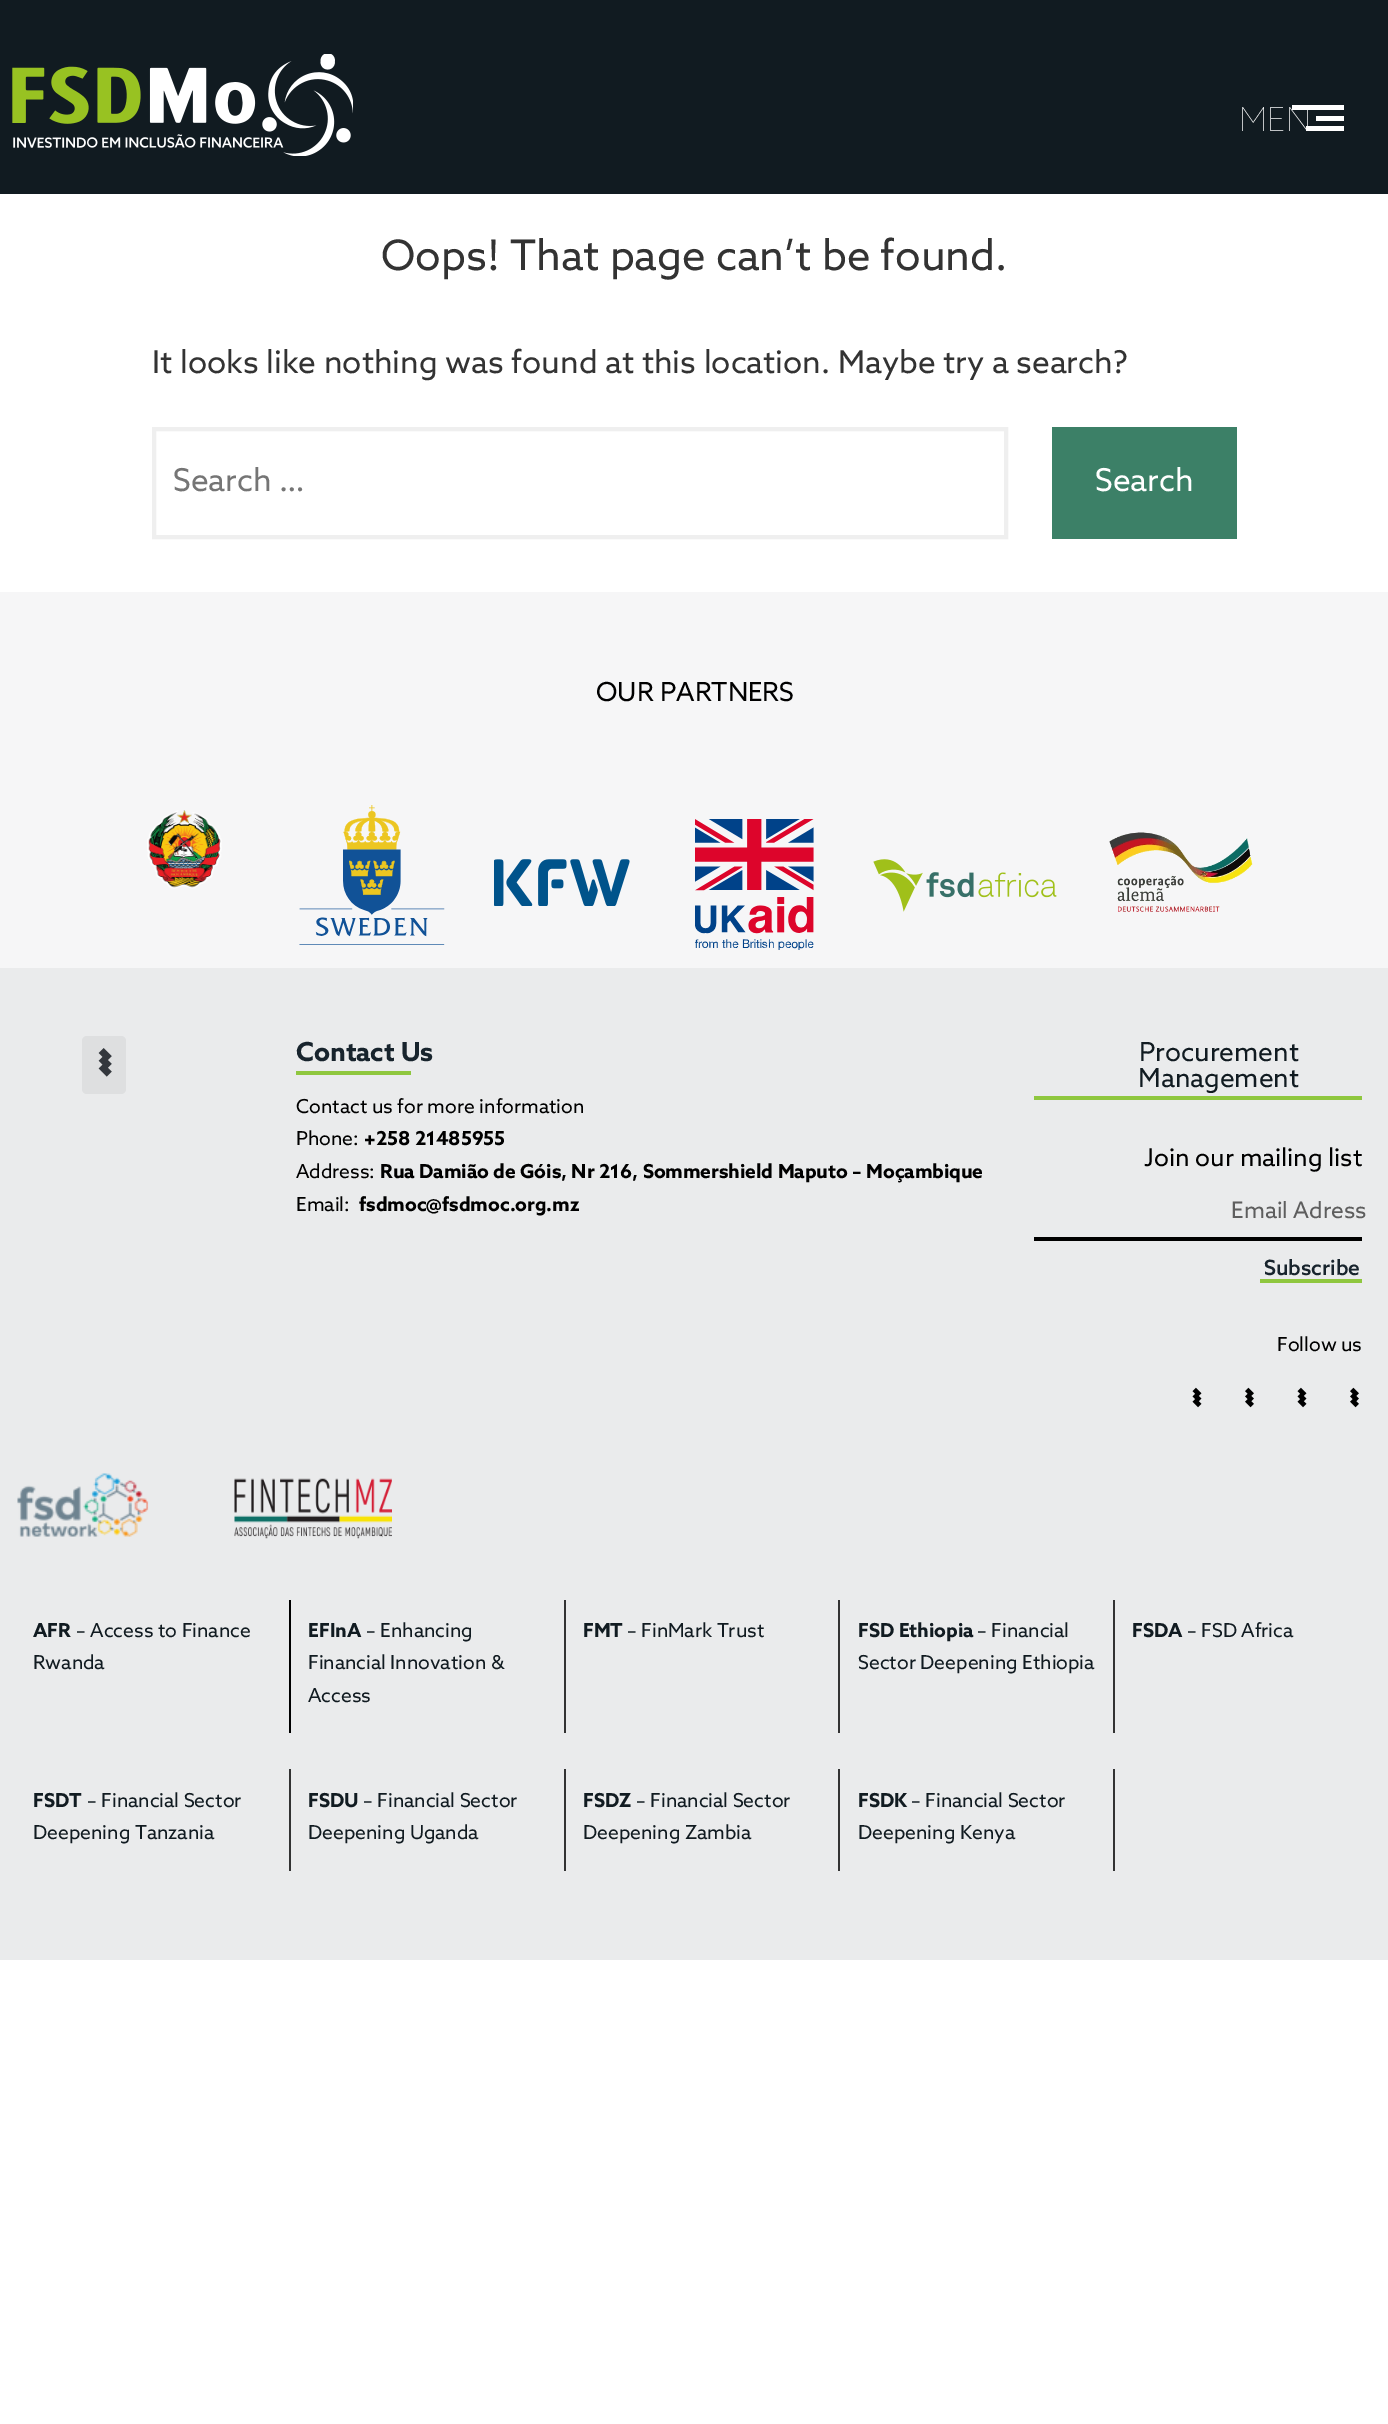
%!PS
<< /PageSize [1388 2424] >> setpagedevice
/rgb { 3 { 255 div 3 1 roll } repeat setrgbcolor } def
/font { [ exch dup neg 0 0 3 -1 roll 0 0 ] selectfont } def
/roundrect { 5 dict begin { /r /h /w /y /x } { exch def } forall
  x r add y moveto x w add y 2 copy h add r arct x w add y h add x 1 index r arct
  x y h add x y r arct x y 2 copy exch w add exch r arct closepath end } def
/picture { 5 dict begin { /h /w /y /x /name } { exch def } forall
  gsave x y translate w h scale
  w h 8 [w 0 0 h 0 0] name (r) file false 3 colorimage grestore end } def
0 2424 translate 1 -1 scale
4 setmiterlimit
255 255 255 rgb
0 0 1388 2424 rectfill
17 27 33 rgb
0 0 1388 194 rectfill
(img/1.rgb) 12 54 341 102 picture
[
  [1292 105 52 5 255 255 255]
  [1316 116 28 5 255 255 255]
  [1306 126 38 5 255 255 255]
] { aload pop rgb rectfill } forall
239 239 239 rgb
4 setlinewidth
154 429 852 108 rectstroke
60 128 103 rgb
1052 427 185 112 rectfill
246 246 247 rgb
0 592 1388 376 rectfill
(img/2.rgb) 147 810 75 79 picture
(img/3.rgb) 299 805 146 140 picture
(img/4.rgb) 494 859 136 47 picture
(img/5.rgb) 695 819 119 131 picture
(img/6.rgb) 873 859 184 53 picture
(img/7.rgb) 1109 832 144 80 picture
234 235 236 rgb
0 968 1388 992 rectfill
222 223 224 rgb
82 1036 44 58 5 roundrect fill
(img/8.rgb) 98 1048 14 29 picture
[
  [296 1071 115 4 143 199 63]
  [1034 1096 328 4 143 199 63]
  [1034 1237 328 4 0 0 0]
  [1260 1279 102 4 143 199 63]
] { aload pop rgb rectfill } forall
(img/9.rgb) 1192 1387 10 21 picture
(img/10.rgb) 1245 1387 9 21 picture
(img/9.rgb) 1297 1387 10 21 picture
(img/10.rgb) 1350 1387 9 21 picture
(img/11.rgb) 17 1473 132 64 picture
(img/12.rgb) 234 1478 158 61 picture
[
  [289 1600 2 133 0 0 0]
  [564 1600 2 133 51 51 51]
  [838 1600 2 133 51 51 51]
  [1113 1600 2 133 51 51 51]
  [289 1769 2 102 51 51 51]
  [564 1769 2 102 51 51 51]
  [838 1769 2 102 51 51 51]
  [1113 1769 2 102 51 51 51]
] { aload pop rgb rectfill } forall
/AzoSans-Thin 33 font
255 255 255 rgb
1239 131 moveto (MEN) show
/AzoSans-Regular 42 font
51 51 51 rgb
381 270 moveto (Oops! That page can’t be found.) show
/AzoSans-Regular 31.5 font
152 373 moveto (It looks like nothing was found at this location. Maybe try a search?) show
117 117 117 rgb
173 491 moveto (Search …) show
255 255 255 rgb
1095 491 moveto (Search) show
/AzoSans-Regular 26.25 font
0 0 0 rgb
596 701 moveto (OUR PARTNERS) show
/AzoSans-Bold 26.25 font
24 36 45 rgb
296 1061 moveto (Contact Us) show
/AzoSans-Regular 19.25 font
0 0 0 rgb
296 1113 moveto (Contact us for more information) show
296 1145 moveto (Phone:) show
/AzoSans-Bold 19.25 font
364 1145 moveto (+258 21485955) show
/AzoSans-Regular 19.25 font
296 1178 moveto (Address:) show
/AzoSans-Bold 19.25 font
380 1178 moveto (Rua Damião de Góis, Nr 216, Sommershield Maputo – Moçambique) show
/AzoSans-Regular 19.25 font
296 1211 moveto (Email:) show
/AzoSans-Bold 19.25 font
359 1211 moveto (fsdmoc@fsdmoc.org.mz) show
/AzoSans-Regular 26.25 font
17 27 33 rgb
1139 1061 moveto (Procurement) show
1138 1087 moveto (Management) show
/AzoSans-Regular 24.5 font
0 0 0 rgb
1144 1166 moveto (Join our mailing list) show
gsave
1055 1201 319 22 rectclip
/AzoSans-Regular 22.75 font
94 94 94 rgb
1231 1218 moveto (Email Adress) show
grestore
/AzoSans-Medium 21 font
24 36 45 rgb
1264 1275 moveto (Subscribe) show
/AzoSans-Regular 19.25 font
0 0 0 rgb
1277 1351 moveto (Follow us) show
/AzoSans-Bold 19.25 font
17 27 33 rgb
33 1637 moveto (AFR) show
/AzoSans-Regular 19.25 font
76 1637 moveto (– Access to Finance) show
33 1669 moveto (Rwanda) show
/AzoSans-Bold 19.25 font
308 1637 moveto (EFInA) show
/AzoSans-Regular 19.25 font
[
  [(– Enhancing) 366 1637]
  [(Financial Innovation &) 308 1669]
  [(Access) 308 1702]
] { aload pop moveto show } forall
/AzoSans-Bold 19.25 font
583 1637 moveto (FMT) show
/AzoSans-Regular 19.25 font
627 1637 moveto (– FinMark Trust) show
/AzoSans-Bold 19.25 font
858 1637 moveto (FSD Ethiopia) show
/AzoSans-Regular 19.25 font
977 1637 moveto (– Financial) show
858 1669 moveto (Sector Deepening Ethiopia) show
/AzoSans-Bold 19.25 font
1132 1637 moveto (FSDA) show
/AzoSans-Regular 19.25 font
1187 1637 moveto (– FSD Africa) show
/AzoSans-Bold 19.25 font
33 1807 moveto (FSDT) show
/AzoSans-Regular 19.25 font
87 1807 moveto (– Financial Sector) show
33 1839 moveto (Deepening Tanzania) show
/AzoSans-Bold 19.25 font
308 1807 moveto (FSDU) show
/AzoSans-Regular 19.25 font
363 1807 moveto (– Financial Sector) show
308 1839 moveto (Deepening Uganda) show
/AzoSans-Bold 19.25 font
583 1807 moveto (FSDZ) show
/AzoSans-Regular 19.25 font
636 1807 moveto (– Financial Sector) show
583 1839 moveto (Deepening Zambia) show
/AzoSans-Bold 19.25 font
858 1807 moveto (FSDK) show
/AzoSans-Regular 19.25 font
911 1807 moveto (– Financial Sector) show
858 1839 moveto (Deepening Kenya) show
showpage
